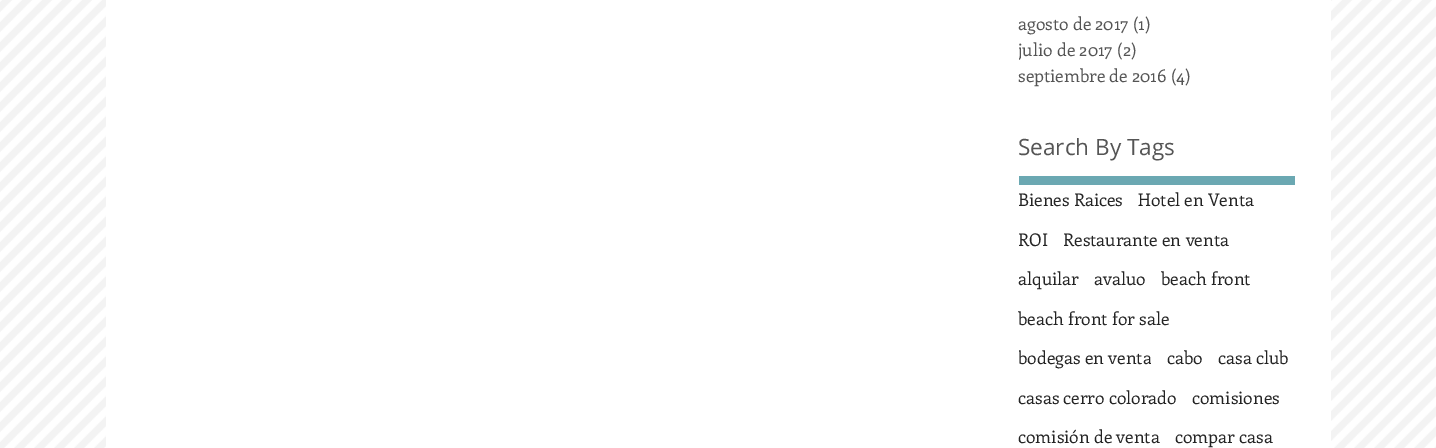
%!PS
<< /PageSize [1436 448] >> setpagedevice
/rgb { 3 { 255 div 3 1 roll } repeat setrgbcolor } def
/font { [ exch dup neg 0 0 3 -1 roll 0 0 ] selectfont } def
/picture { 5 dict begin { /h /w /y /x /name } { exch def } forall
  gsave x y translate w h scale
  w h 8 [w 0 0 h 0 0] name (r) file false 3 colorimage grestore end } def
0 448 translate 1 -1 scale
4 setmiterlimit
255 255 255 rgb
0 0 1436 448 rectfill
(img/1.rgb) 0 0 1436 448 picture
106 0 1225 448 rectfill
107 168 178 rgb
1019 176 276 9 rectfill
/Enriqueta-Regular 17.5 font
85 85 85 rgb
1018 30 moveto (agosto de 2017 \(1\)) show
gsave
1019 36 117 27 rectclip
1018 56 moveto (julio de 2017) show
grestore
1117 56 moveto (\(2\)) show
1018 82 moveto (septiembre de 2016 \(4\)) show
/OpenSans-Regular 22.5 font
1018 155 moveto (Search By Tags) show
/Enriqueta-Regular 17.5 font
36 36 36 rgb
[
  [(Bienes Raices) 1018 206]
  [(Hotel en Venta) 1138 206]
  [(ROI) 1018 246]
  [(Restaurante en venta) 1063 246]
  [(alquilar) 1018 285]
  [(avaluo) 1094 285]
  [(beach front) 1161 285]
  [(beach front for sale) 1018 325]
] { aload pop moveto show } forall
gsave
1019 346 132 24 rectclip
1018 364 moveto (bodegas en venta) show
grestore
[
  [(cabo) 1167 364]
  [(casa club) 1218 364]
  [(casas cerro colorado) 1018 404]
  [(comisiones) 1192 404]
  [(comisión de venta) 1018 443]
  [(compar casa) 1175 443]
] { aload pop moveto show } forall
showpage
